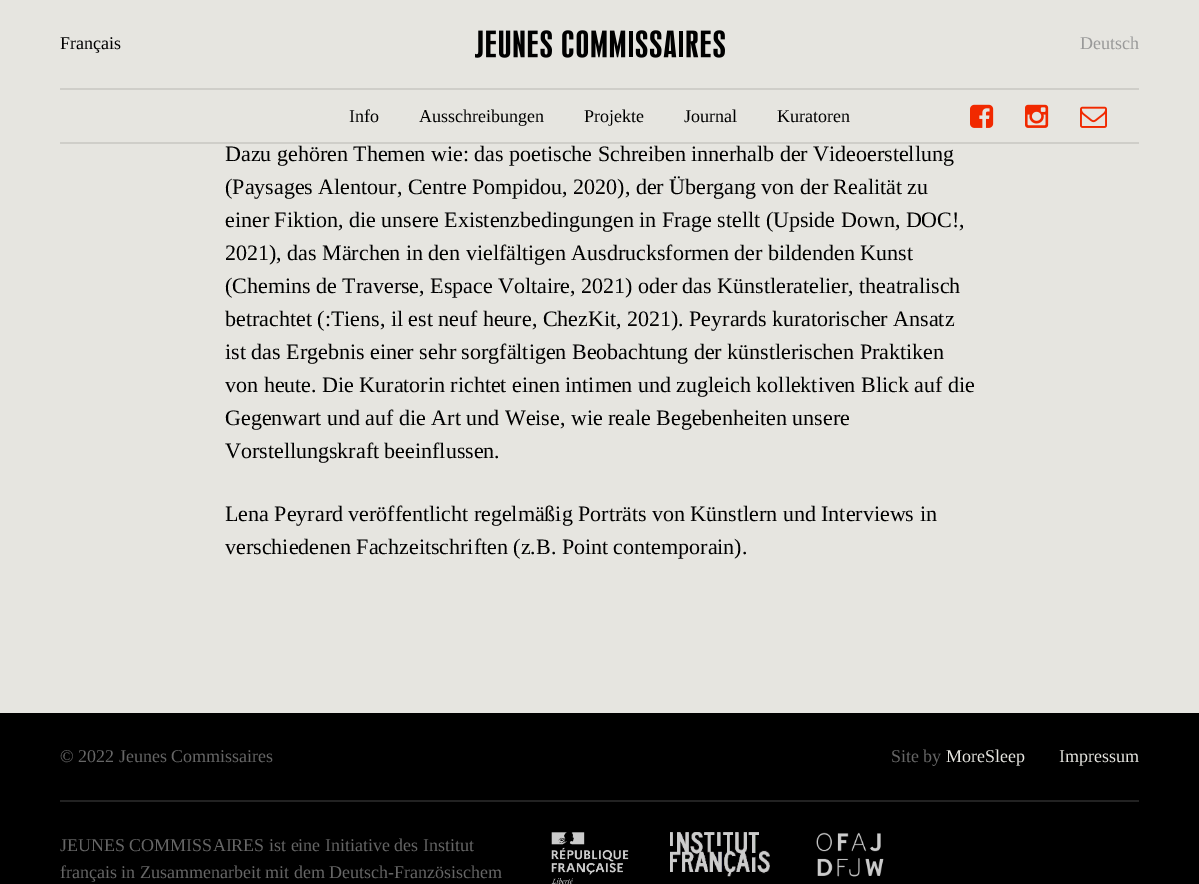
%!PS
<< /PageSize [1199 884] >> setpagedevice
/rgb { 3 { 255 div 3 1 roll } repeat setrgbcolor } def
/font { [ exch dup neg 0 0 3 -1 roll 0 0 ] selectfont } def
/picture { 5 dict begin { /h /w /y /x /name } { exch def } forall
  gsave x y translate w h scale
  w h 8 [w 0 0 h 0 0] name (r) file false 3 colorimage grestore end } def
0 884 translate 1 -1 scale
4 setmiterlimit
230 229 224 rgb
0 0 1199 884 rectfill
(img/1.rgb) 475 30 250 28 picture
207 206 201 rgb
60 88 1079 2 rectfill
60 142 1079 2 rectfill
(img/2.rgb) 970 104 24 24 picture
(img/3.rgb) 1025 104 24 24 picture
(img/4.rgb) 1080 106 27 22 picture
0 0 0 rgb
0 713 1199 171 rectfill
34 34 34 rgb
60 800 1079 2 rectfill
(img/5.rgb) 551 832 78 52 picture
(img/6.rgb) 670 832 100 45 picture
(img/7.rgb) 816 832 68 45 picture
/LiberationSerif-Regular 18 font
0 0 0 rgb
60 49 moveto (Français) show
153 153 153 rgb
1080 49 moveto (Deutsch) show
0 0 0 rgb
[
  [(Info) 349 122]
  [(Ausschreibungen) 419 122]
  [(Projekte) 584 122]
  [(Journal) 684 122]
  [(Kuratoren) 777 122]
] { aload pop moveto show } forall
/LiberationSerif-Regular 22 font
[
  [(Dazu gehören Themen wie: das poetische Schreiben innerhalb der Videoerstellung) 225 161]
  [(\(Paysages Alentour, Centre Pompidou, 2020\), der Übergang von der Realität zu) 225 194]
  [(einer Fiktion, die unsere Existenzbedingungen in Frage stellt \(Upside Down, DOC!,) 225 227]
  [(2021\), das Märchen in den vielfältigen Ausdrucksformen der bildenden Kunst) 225 260]
  [(\(Chemins de Traverse, Espace Voltaire, 2021\) oder das Künstleratelier, theatralisch) 225 293]
  [(betrachtet \(:Tiens, il est neuf heure, ChezKit, 2021\). Peyrards kuratorischer Ansatz) 225 326]
  [(ist das Ergebnis einer sehr sorgfältigen Beobachtung der künstlerischen Praktiken) 225 359]
  [(von heute. Die Kuratorin richtet einen intimen und zugleich kollektiven Blick auf die) 225 392]
  [(Gegenwart und auf die Art und Weise, wie reale Begebenheiten unsere) 225 425]
  [(Vorstellungskraft beeinflussen.) 225 458]
  [(Lena Peyrard veröffentlicht regelmäßig Porträts von Künstlern und Interviews in) 225 521]
  [(verschiedenen Fachzeitschriften \(z.B. Point contemporain\).) 225 554]
] { aload pop moveto show } forall
/LiberationSerif-Regular 18 font
102 102 102 rgb
60 762 moveto (© 2022 Jeunes Commissaires) show
891 762 moveto (Site by) show
230 229 224 rgb
946 762 moveto (MoreSleep) show
1059 762 moveto (Impressum) show
102 102 102 rgb
60 851 moveto (JEUNES COMMISSAIRES ist eine Initiative des Institut) show
60 878 moveto (français in Zusammenarbeit mit dem Deutsch-Französischem) show
showpage
